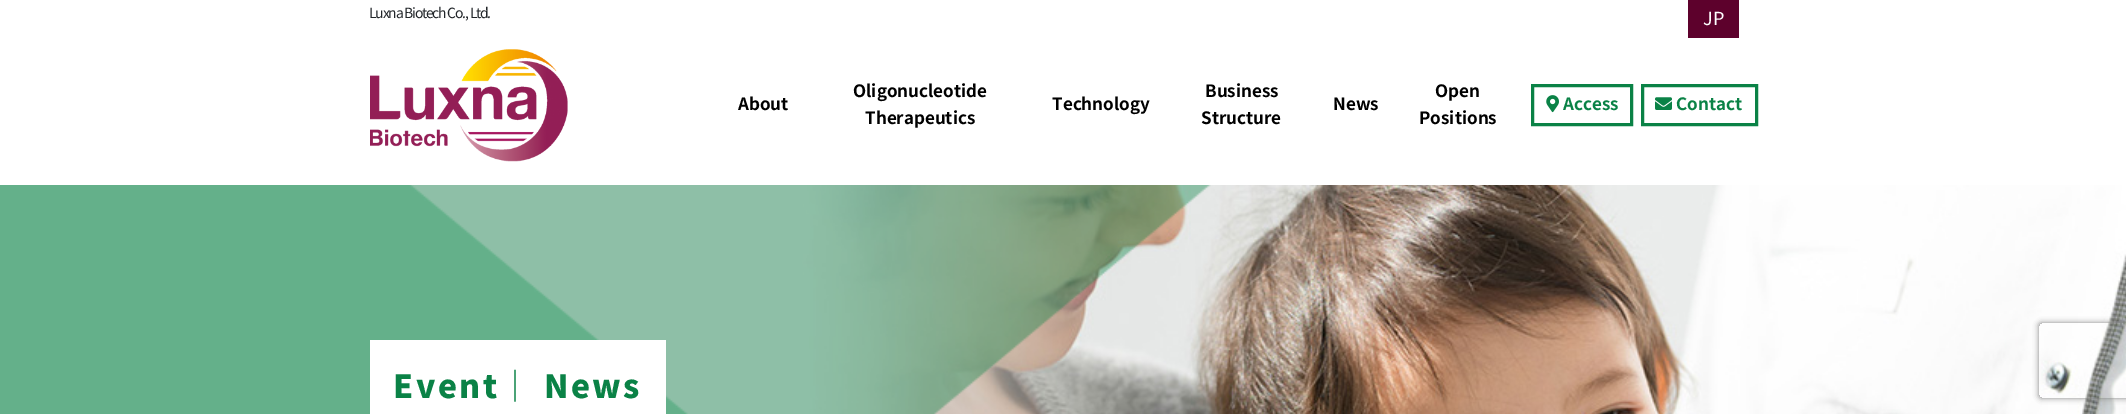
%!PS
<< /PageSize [2126 414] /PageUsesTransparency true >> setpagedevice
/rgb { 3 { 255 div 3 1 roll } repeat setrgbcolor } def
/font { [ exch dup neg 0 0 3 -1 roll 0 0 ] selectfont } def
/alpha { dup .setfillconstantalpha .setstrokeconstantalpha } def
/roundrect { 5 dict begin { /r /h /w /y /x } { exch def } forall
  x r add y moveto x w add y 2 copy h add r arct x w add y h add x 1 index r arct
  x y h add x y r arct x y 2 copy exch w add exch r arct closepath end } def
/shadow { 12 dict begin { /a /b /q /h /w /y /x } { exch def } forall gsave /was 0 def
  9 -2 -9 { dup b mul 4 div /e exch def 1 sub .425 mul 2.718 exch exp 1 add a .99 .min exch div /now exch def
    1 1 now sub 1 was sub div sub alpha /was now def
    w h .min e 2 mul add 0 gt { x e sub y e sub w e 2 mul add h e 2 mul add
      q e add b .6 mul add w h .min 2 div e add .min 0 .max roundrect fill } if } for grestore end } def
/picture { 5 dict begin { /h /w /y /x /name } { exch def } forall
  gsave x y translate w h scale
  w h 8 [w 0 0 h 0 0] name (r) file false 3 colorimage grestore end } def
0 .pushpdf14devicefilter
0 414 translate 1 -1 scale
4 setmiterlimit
255 255 255 rgb
0 0 2126 414 rectfill
93 1 44 rgb
1688 0 51 38 rectfill
(img/1.rgb) 370 49 198 113 picture
10 130 70 rgb
3 setlinewidth
1532.5 85.5 99 39 rectstroke
(img/2.rgb) 1546 95 13 18 picture
1642.5 85.5 114 39 rectstroke
(img/3.rgb) 1655 97 17 13 picture
(img/4.rgb) 0 185 2126 229 picture
(img/5.rgb) 0 185 1211 229 picture
255 255 255 rgb
370 340 296 74 rectfill
gsave
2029 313 moveto 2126 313 lineto 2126 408 lineto 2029 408 lineto closepath 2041.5 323 moveto 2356.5 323 lineto 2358 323 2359 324 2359 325.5 curveto 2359 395.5 lineto 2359 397 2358 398 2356.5 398 curveto 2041.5 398 lineto 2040 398 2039 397 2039 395.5 curveto 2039 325.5 lineto 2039 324 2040 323 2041.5 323 curveto closepath eoclip newpath
128 128 128 rgb
2039 323 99 75 2.5 3 1 shadow
grestore
/NotoSansCJKJP-Regular 14 font
33 37 41 rgb
369 18 moveto -1.25 0 (Luxna Biotech Co., Ltd.) ashow
/NotoSansCJKJP-Regular 18 font
255 255 255 rgb
1703 25 moveto (JP) show
/NotoSansCJKJP-Bold 17 font
0 0 0 rgb
[
  [(About) 738 110]
  [(Oligonucleotide) 853 97]
  [(Therapeutics) 865 124]
  [(Technology) 1052 110]
  [(Business) 1205 97]
  [(Structure) 1201 124]
  [(News) 1333 110]
  [(Open) 1435 97]
  [(Positions) 1419 124]
] { aload pop moveto show } forall
10 130 70 rgb
1563 110 moveto (Access) show
1676 110 moveto (Contact) show
/NotoSansCJKJP-Black 32 font
393 398 moveto 2.5 0 (Event│ News) ashow
.poppdf14devicefilter showpage
